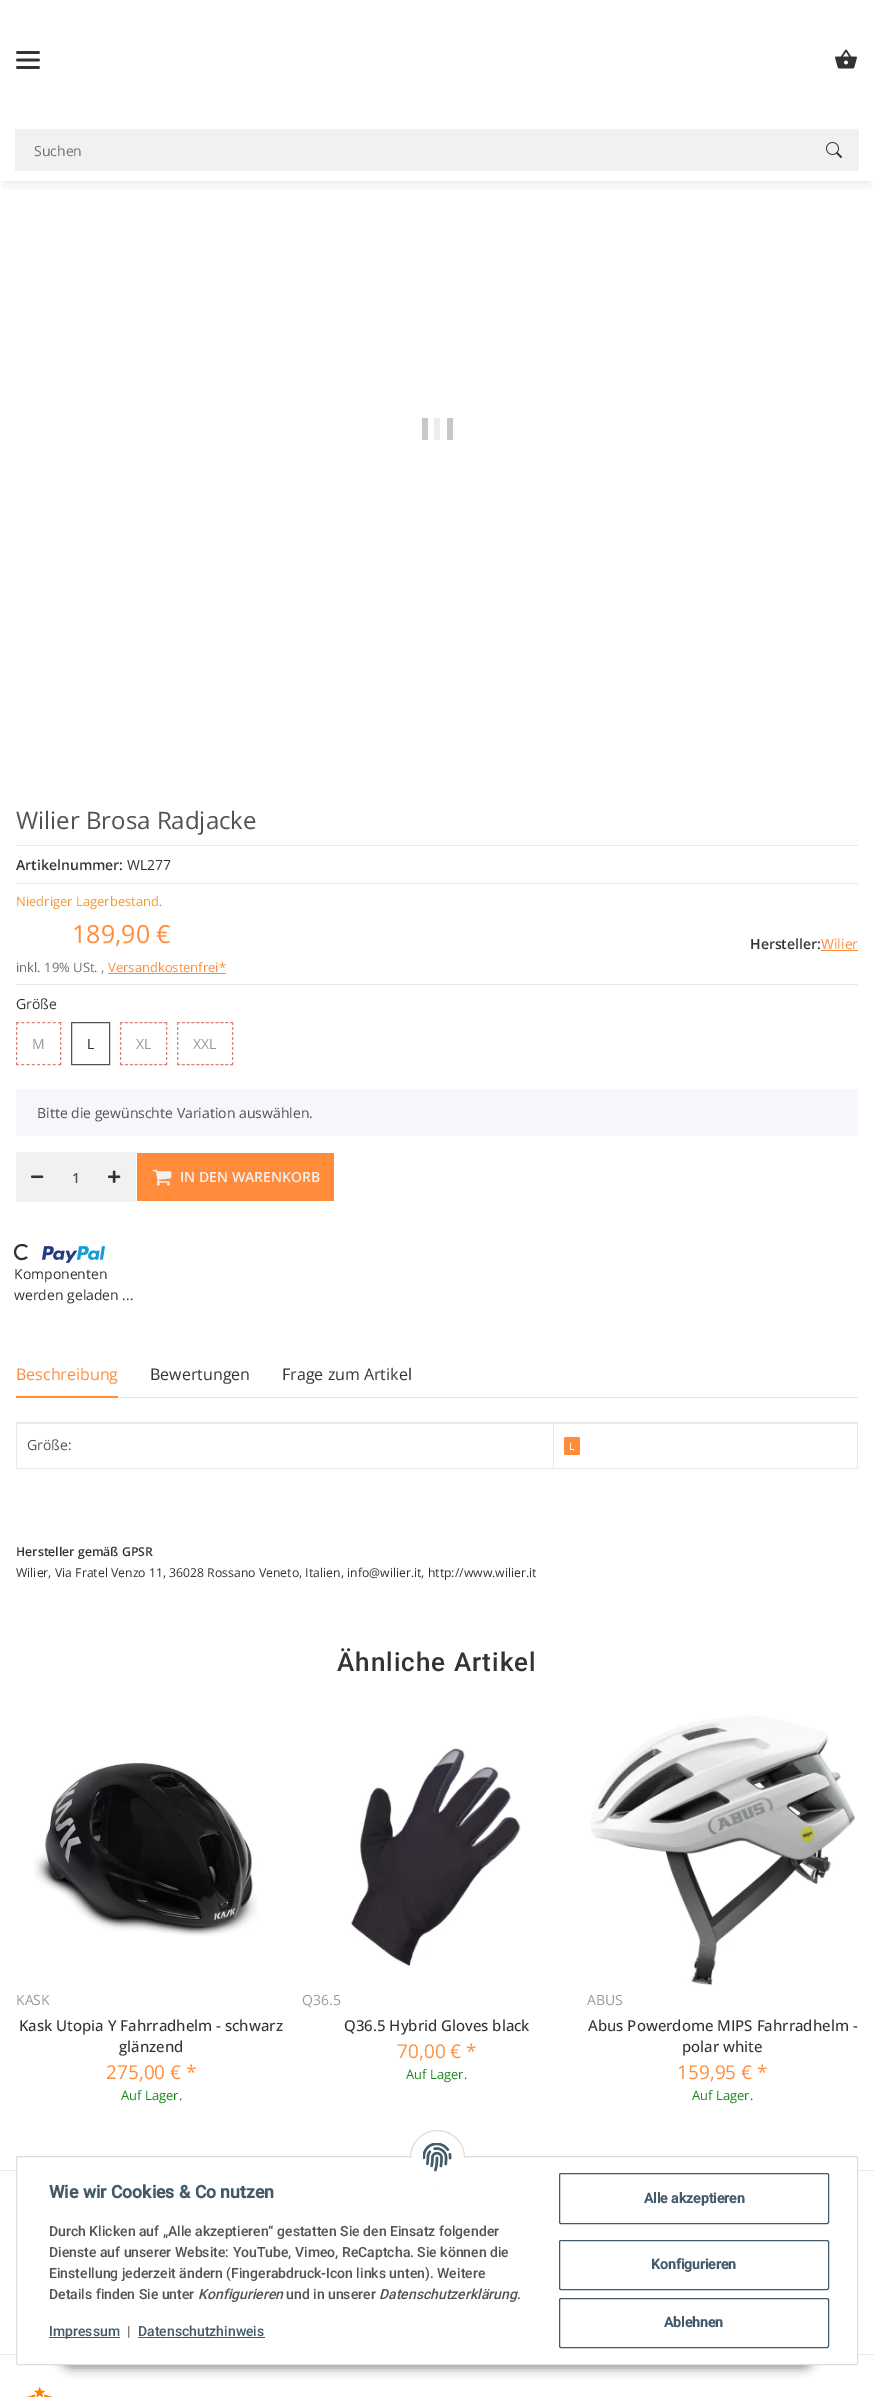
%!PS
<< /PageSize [874 2397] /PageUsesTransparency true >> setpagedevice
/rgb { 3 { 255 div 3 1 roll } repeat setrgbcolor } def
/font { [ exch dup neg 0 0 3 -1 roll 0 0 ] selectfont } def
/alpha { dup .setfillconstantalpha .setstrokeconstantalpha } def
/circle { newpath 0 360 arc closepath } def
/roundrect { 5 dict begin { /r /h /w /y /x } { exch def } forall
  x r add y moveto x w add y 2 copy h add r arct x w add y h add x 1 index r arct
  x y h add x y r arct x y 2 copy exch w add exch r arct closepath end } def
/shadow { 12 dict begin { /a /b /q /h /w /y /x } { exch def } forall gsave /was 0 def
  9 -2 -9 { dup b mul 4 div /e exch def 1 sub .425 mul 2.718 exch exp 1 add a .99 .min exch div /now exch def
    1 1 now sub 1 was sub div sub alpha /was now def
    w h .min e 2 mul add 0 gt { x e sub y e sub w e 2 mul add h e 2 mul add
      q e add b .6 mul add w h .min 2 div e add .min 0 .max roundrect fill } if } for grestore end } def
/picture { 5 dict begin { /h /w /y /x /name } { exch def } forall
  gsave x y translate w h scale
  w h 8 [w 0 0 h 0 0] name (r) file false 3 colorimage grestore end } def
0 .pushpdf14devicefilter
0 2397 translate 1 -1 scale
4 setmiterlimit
255 255 255 rgb
0 0 874 2397 rectfill
gsave
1 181 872 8 rectclip
0 0 0 rgb
5 5 864 171 0 10 0.2 shadow
grestore
(img/1.rgb) 16 51 24 18 picture
(img/2.rgb) 835 49 22 20 picture
241 241 241 rgb
15 129 844 42 rectfill
(img/3.rgb) 826 142 16 16 picture
[
  [422 418 6 22 199 199 199]
  [434 418 6 22 237 237 237]
  [447 418 6 22 199 199 199]
  [16 845 842 1 233 233 233]
  [16 883 842 1 233 233 233]
  [16 984 842 1 233 233 233]
  [108 973 118 1 255 139 59]
  [821 950 37 1 255 139 59]
] { aload pop rgb rectfill } forall
220 128 128 rgb
[3 2.25] 0 setdash
16 1022.5 moveto 61 1022.5 lineto stroke
[3 2] 0 setdash
60.5 1022 moveto 60.5 1065 lineto stroke
[3 2.25] 0 setdash
16 1064.5 moveto 61 1064.5 lineto stroke
[3 2] 0 setdash
16.5 1022 moveto 16.5 1065 lineto stroke
82 82 82 rgb
[] 0 setdash
71.5 1022.5 38 42 rectstroke
220 128 128 rgb
[3 1.89] 0 setdash
120 1022.5 moveto 167 1022.5 lineto stroke
[3 2] 0 setdash
166.5 1022 moveto 166.5 1065 lineto stroke
[3 1.89] 0 setdash
120 1064.5 moveto 167 1064.5 lineto stroke
[3 2] 0 setdash
120.5 1022 moveto 120.5 1065 lineto stroke
[3 1.82] 0 setdash
177 1022.5 moveto 233 1022.5 lineto stroke
[3 2] 0 setdash
232.5 1022 moveto 232.5 1065 lineto stroke
[3 1.82] 0 setdash
177 1064.5 moveto 233 1064.5 lineto stroke
[3 2] 0 setdash
177.5 1022 moveto 177.5 1065 lineto stroke
245 247 250 rgb
16 1089 842 47 2 roundrect fill
241 241 241 rgb
16 1152 120 50 rectfill
(img/4.rgb) 31 1175 13 4 picture
(img/5.rgb) 108 1170 13 13 picture
255 139 59 rgb
137 1153 197 48 rectfill
(img/6.rgb) 152 1169 20 17 picture
51 51 51 rgb
2 setlinewidth
[] 0 setdash
27 1257 moveto 25.5 1258.5 23 1259.5 20.5 1259 curveto 12.5 1257 13.5 1245 22 1245 curveto 24 1245 25.5 1245.5 27 1247 curveto stroke
(img/7.rgb) 42 1246 63 17 picture
[
  [118 1397 740 1 222 226 230]
  [16 1396 102 2 255 139 59]
  [16 1422 842 1 233 233 233]
  [857 1422 1 47 233 233 233]
  [16 1468 842 1 233 233 233]
  [16 1422 1 47 233 233 233]
  [16 1423 842 1 233 233 233]
  [553 1423 1 46 233 233 233]
] { aload pop rgb rectfill } forall
255 139 59 rgb
564 1437 16 18 2 roundrect fill
(img/8.rgb) 34 1762 224 174 picture
(img/9.rgb) 351 1747 170 220 picture
(img/10.rgb) 590 1715 265 270 picture
233 233 233 rgb
0 2170 874 1 rectfill
0 2354 874 1 rectfill
(img/11.rgb) 27 2387 26 10 picture
0 0 0 rgb
59 2336 756 32 16 5 0.45 shadow
255 255 255 rgb
16.5 2156.5 841 208 1.5 roundrect gsave fill grestore
221 221 221 rgb
1 setlinewidth
stroke
255 255 255 rgb
437.5 2157.5 27 circle gsave fill grestore
221 221 221 rgb
stroke
255 255 255 rgb
410 2158 55 27 rectfill
(img/12.rgb) 423 2143 29 29 picture
67 90 107 rgb
49 2337 71 1 rectfill
138 2337 127 1 rectfill
559.5 2173.5 269 50 1.5 roundrect stroke
559.5 2240.5 269 49 1.5 roundrect stroke
559.5 2298.5 269 49 1.5 roundrect stroke
/OpenSans-Regular 14 font
112 112 112 rgb
34 156 moveto (Suchen) show
/OpenSans-Regular 24 font
82 82 82 rgb
16 829 moveto (Wilier Brosa Radjacke) show
/OpenSans-SemiBold 14 font
51 51 51 rgb
16 870 moveto (Artikelnummer:) show
/OpenSans-Regular 14 font
127 870 moveto (WL277) show
/OpenSans-Regular 13 font
243 153 50 rgb
16 906 moveto (Niedriger Lagerbestand.) show
/OpenSans-Regular 25 font
255 139 59 rgb
72 943 moveto (189,90 €) show
/OpenSans-Regular 13 font
112 112 112 rgb
16 972 moveto (inkl. 19% USt. ,) show
255 139 59 rgb
108 972 moveto (Versandkostenfrei*) show
/OpenSans-SemiBold 14 font
51 51 51 rgb
750 949 moveto (Hersteller:) show
/OpenSans-Regular 14 font
255 139 59 rgb
821 949 moveto (Wilier) show
51 51 51 rgb
16 1009 moveto (Größe) show
153 153 153 rgb
32 1049 moveto (M) show
51 51 51 rgb
87 1049 moveto (L) show
153 153 153 rgb
136 1049 moveto (XL) show
193 1049 moveto (XXL) show
82 82 82 rgb
37 1118 moveto (Bitte die gewünschte Variation auswählen.) show
/OpenSans-SemiBold 14 font
72 1183 moveto (1) show
241 241 241 rgb
180 1182 moveto (IN DEN WARENKORB) show
/OpenSans-Regular 14 font
51 51 51 rgb
14 1279 moveto (Komponenten) show
14 1300 moveto (werden geladen ...) show
/OpenSans-Regular 16 font
255 139 59 rgb
16 1380 moveto (Beschreibung) show
51 51 51 rgb
150 1380 moveto (Bewertungen) show
282 1380 moveto (Frage zum Artikel) show
/OpenSans-Regular 14 font
82 82 82 rgb
27 1450 moveto (Größe:) show
/OpenSans-SemiBold 10 font
255 255 255 rgb
569 1450 moveto (L) show
/OpenSans-SemiBold 12.25 font
51 51 51 rgb
16 1556 moveto (Hersteller gemäß GPSR) show
/OpenSans-Regular 12.25 font
16 1577 moveto (Wilier, Via Fratel Venzo 11, 36028 Rossano Veneto, Italien, info@wilier.it, http://www.wilier.it) show
/Roboto-Medium 26 font
337 1671 moveto 1 0 (Ähnliche Artikel) ashow
/OpenSans-Regular 14 font
153 153 153 rgb
16 2005 moveto (KASK) show
/OpenSans-Medium 15 font
51 51 51 rgb
19 2031 moveto (Kask Utopia Y Fahrradhelm - schwarz) show
119 2052 moveto (glänzend) show
/OpenSans-Regular 19 font
255 139 59 rgb
106 2079 moveto (275,00 € *) show
/OpenSans-Regular 13 font
28 135 30 rgb
121 2100 moveto (Auf Lager.) show
/OpenSans-Regular 14 font
153 153 153 rgb
302 2005 moveto (Q36.5) show
/OpenSans-Medium 15 font
51 51 51 rgb
344 2031 moveto (Q36.5 Hybrid Gloves black) show
/OpenSans-Regular 19 font
255 139 59 rgb
397 2058 moveto (70,00 € *) show
/OpenSans-Regular 13 font
28 135 30 rgb
406 2079 moveto (Auf Lager.) show
/OpenSans-Regular 14 font
153 153 153 rgb
587 2005 moveto (ABUS) show
/OpenSans-Medium 15 font
51 51 51 rgb
588 2031 moveto (Abus Powerdome MIPS Fahrradhelm -) show
682 2052 moveto (polar white) show
/OpenSans-Regular 19 font
255 139 59 rgb
677 2079 moveto (159,95 € *) show
/OpenSans-Regular 13 font
28 135 30 rgb
692 2100 moveto (Auf Lager.) show
/Roboto-Bold 17.6 font
67 90 107 rgb
49 2198 moveto (Wie wir Cookies & Co nutzen) show
/Roboto-Medium 14 font
82 82 82 rgb
[
  [(Durch Klicken auf „Alle akzeptieren“ gestatten Sie den Einsatz folgender) 49 2236]
  [(Dienste auf unserer Website: YouTube, Vimeo, ReCaptcha. Sie können die) 49 2257]
  [(Einstellung jederzeit ändern \(Fingerabdruck-Icon links unten\). Weitere) 49 2278]
  [(Details finden Sie unter) 49 2299]
] { aload pop moveto show } forall
/Roboto-MediumItalic 14 font
198 2299 moveto (Konfigurieren) show
/Roboto-Medium 14 font
286 2299 moveto (und in unserer) show
/Roboto-MediumItalic 14 font
379 2299 moveto (Datenschutzerklärung) show
/Roboto-Medium 14 font
517 2299 moveto (.) show
67 90 107 rgb
49 2336 moveto (Impressum) show
82 82 82 rgb
127 2336 moveto (|) show
67 90 107 rgb
138 2336 moveto (Datenschutzhinweis) show
/Roboto-Bold 14 font
[
  [(Alle akzeptieren) 644 2203]
  [(Konfigurieren) 651 2269]
  [(Ablehnen) 664 2327]
] { aload pop moveto show } forall
.poppdf14devicefilter showpage
